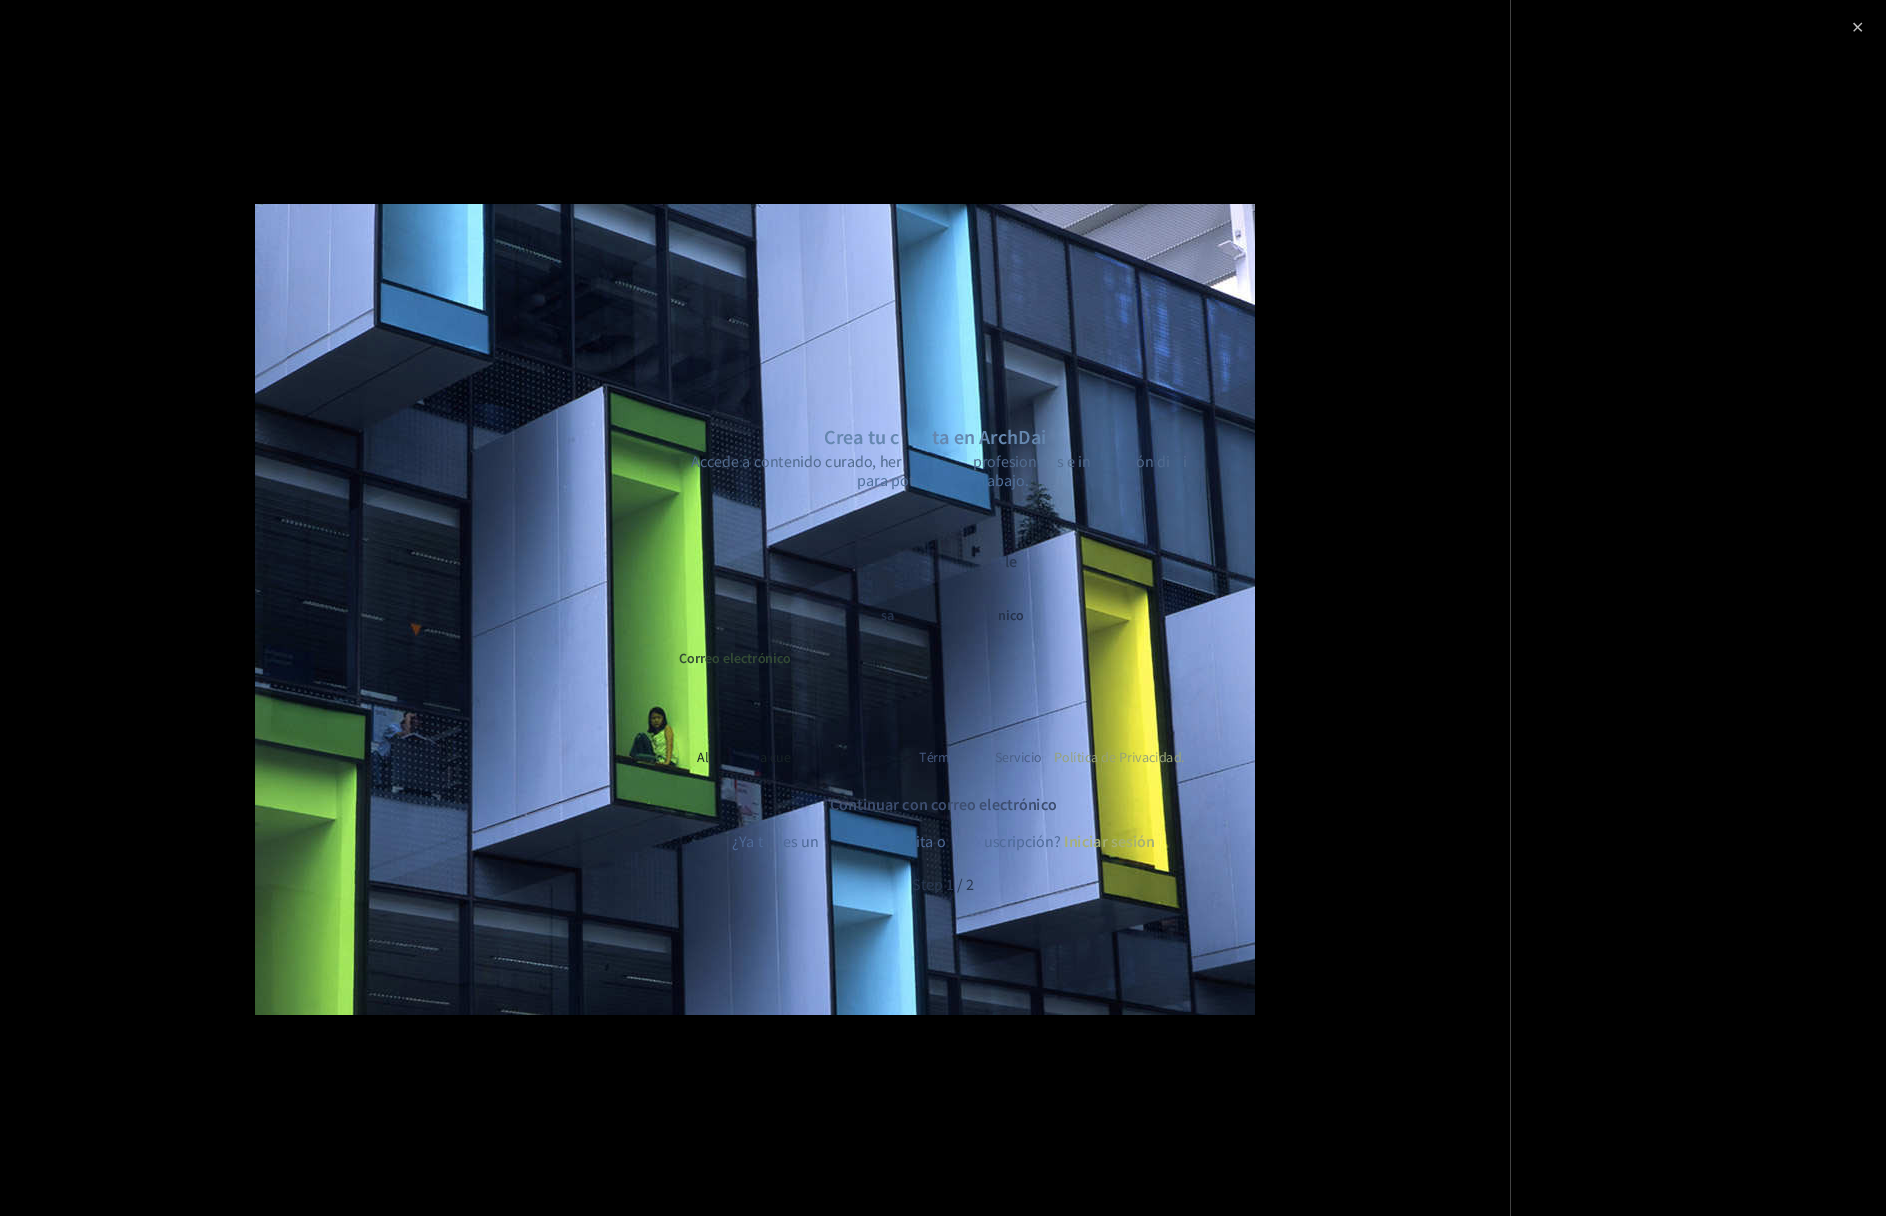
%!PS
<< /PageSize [1886 1216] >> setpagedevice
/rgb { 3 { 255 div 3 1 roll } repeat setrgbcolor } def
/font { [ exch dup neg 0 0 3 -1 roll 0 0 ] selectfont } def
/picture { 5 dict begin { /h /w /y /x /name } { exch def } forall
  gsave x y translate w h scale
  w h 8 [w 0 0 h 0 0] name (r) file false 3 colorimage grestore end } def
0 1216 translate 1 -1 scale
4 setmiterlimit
0 0 0 rgb
0 0 1886 1216 rectfill
68 68 68 rgb
1510 0 1 1216 rectfill
(img/1.rgb) 255 204 1000 811 picture
/DejaVuSans-Regular 16 font
187 187 187 rgb
1851 33 moveto (✕) show
/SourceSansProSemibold-SemiBold 20 font
101 135 175 rgb
824 444 moveto (Crea tu c) show
932 444 moveto (ta en ArchDai) show
/SourceSansPro-Regular 16 font
82 108 144 rgb
[
  [(Accede a contenido curado, her) 691 467]
  [(profesion) 973 467]
  [(s e in) 1057 467]
  [(ón di) 1136 467]
  [(i) 1183 467]
] { aload pop moveto show } forall
80 112 155 rgb
857 486 moveto (para pot) show
987 486 moveto (abajo.) show
/SourceSansProSemibold-SemiBold 16 font
41 56 82 rgb
1005 567 moveto (le) show
/SourceSansProSemibold-SemiBold 14 font
37 50 75 rgb
881 620 moveto (sa) show
998 620 moveto (nico) show
50 74 52 rgb
679 663 moveto (Correo electrónico) show
/SourceSansPro-Regular 14 font
22 33 37 rgb
697 762 moveto (Al) show
760 762 moveto (a cue) show
72 93 133 rgb
919 762 moveto (Térm) show
995 762 moveto (Servicio) show
151 163 120 rgb
1054 762 moveto (Política de Privacidad.) show
/SourceSansProSemibold-SemiBold 16 font
61 78 112 rgb
830 810 moveto (Continuar con correo electrónico) show
/SourceSansPro-Regular 16 font
78 106 152 rgb
[
  [(¿Ya t) 732 847]
  [(es un) 783 847]
  [(ita o) 916 847]
  [(uscripción?) 984 847]
] { aload pop moveto show } forall
/SourceSansProSemibold-SemiBold 16 font
167 177 118 rgb
1064 847 moveto (Iniciar sesión) show
/SourceSansPro-Regular 16 font
41 56 82 rgb
912 890 moveto (Step 1 / 2) show
showpage
